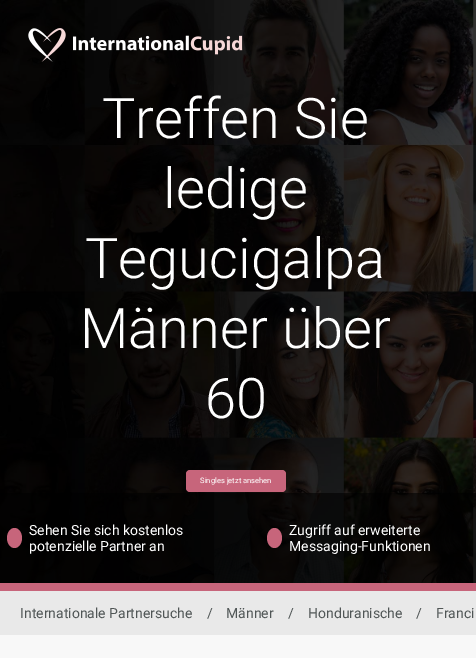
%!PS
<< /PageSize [476 658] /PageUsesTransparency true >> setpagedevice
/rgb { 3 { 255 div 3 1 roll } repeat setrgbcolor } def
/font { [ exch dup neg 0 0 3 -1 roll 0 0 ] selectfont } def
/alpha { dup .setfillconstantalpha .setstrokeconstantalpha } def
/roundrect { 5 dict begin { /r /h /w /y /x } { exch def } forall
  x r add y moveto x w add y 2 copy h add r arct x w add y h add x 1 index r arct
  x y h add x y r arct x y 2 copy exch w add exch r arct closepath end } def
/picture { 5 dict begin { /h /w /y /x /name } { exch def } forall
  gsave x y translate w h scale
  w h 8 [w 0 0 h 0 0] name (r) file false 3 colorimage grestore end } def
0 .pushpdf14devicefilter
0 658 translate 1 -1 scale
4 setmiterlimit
248 248 248 rgb
0 0 476 658 rectfill
(img/3.rgb) 0 0 476 583 picture
(img/1.rgb) 28 28 38 34 picture
(img/2.rgb) 73 35 170 20 picture
199 101 123 rgb
186 470 100 22 4 roundrect fill
0.6 alpha
0 0 0 rgb
0 493 476 90 rectfill
1 alpha
199 101 123 rgb
14.5 528 moveto 18.5 528 22 532.5 22 538 curveto 22 543.5 18.5 548 14.5 548 curveto 10.5 548 7 543.5 7 538 curveto 7 532.5 10.5 528 14.5 528 curveto closepath fill
274.5 528 moveto 278.5 528 282 532.5 282 538 curveto 282 543.5 278.5 548 274.5 548 curveto 270.5 548 267 543.5 267 538 curveto 267 532.5 270.5 528 274.5 528 curveto closepath fill
0 583 476 8 rectfill
233 233 233 rgb
0 591 476 44 rectfill
/Roboto-Light 56 font
255 255 255 rgb
[
  [(Treffen Sie) 102 138]
  [(ledige) 163 208]
  [(Tegucigalpa) 85 278]
  [(Männer über) 80 348]
  [(60) 205 418]
] { aload pop moveto show } forall
/Roboto-Regular 7.6 font
200 483 moveto (Singles jetzt ansehen) show
/Roboto-Regular 14 font
[
  [(Sehen Sie sich kostenlos) 29 535]
  [(potenzielle Partner an) 29 551]
  [(Zugriff auf erweiterte) 289 535]
  [(Messaging-Funktionen) 289 551]
] { aload pop moveto show } forall
80 86 86 rgb
[
  [(Internationale Partnersuche) 20 618]
  [(/) 207 618]
  [(Männer) 226 618]
  [(/) 288 618]
  [(Honduranische) 308 618]
  [(/) 416 618]
  [(Franci) 436 618]
] { aload pop moveto show } forall
.poppdf14devicefilter showpage
